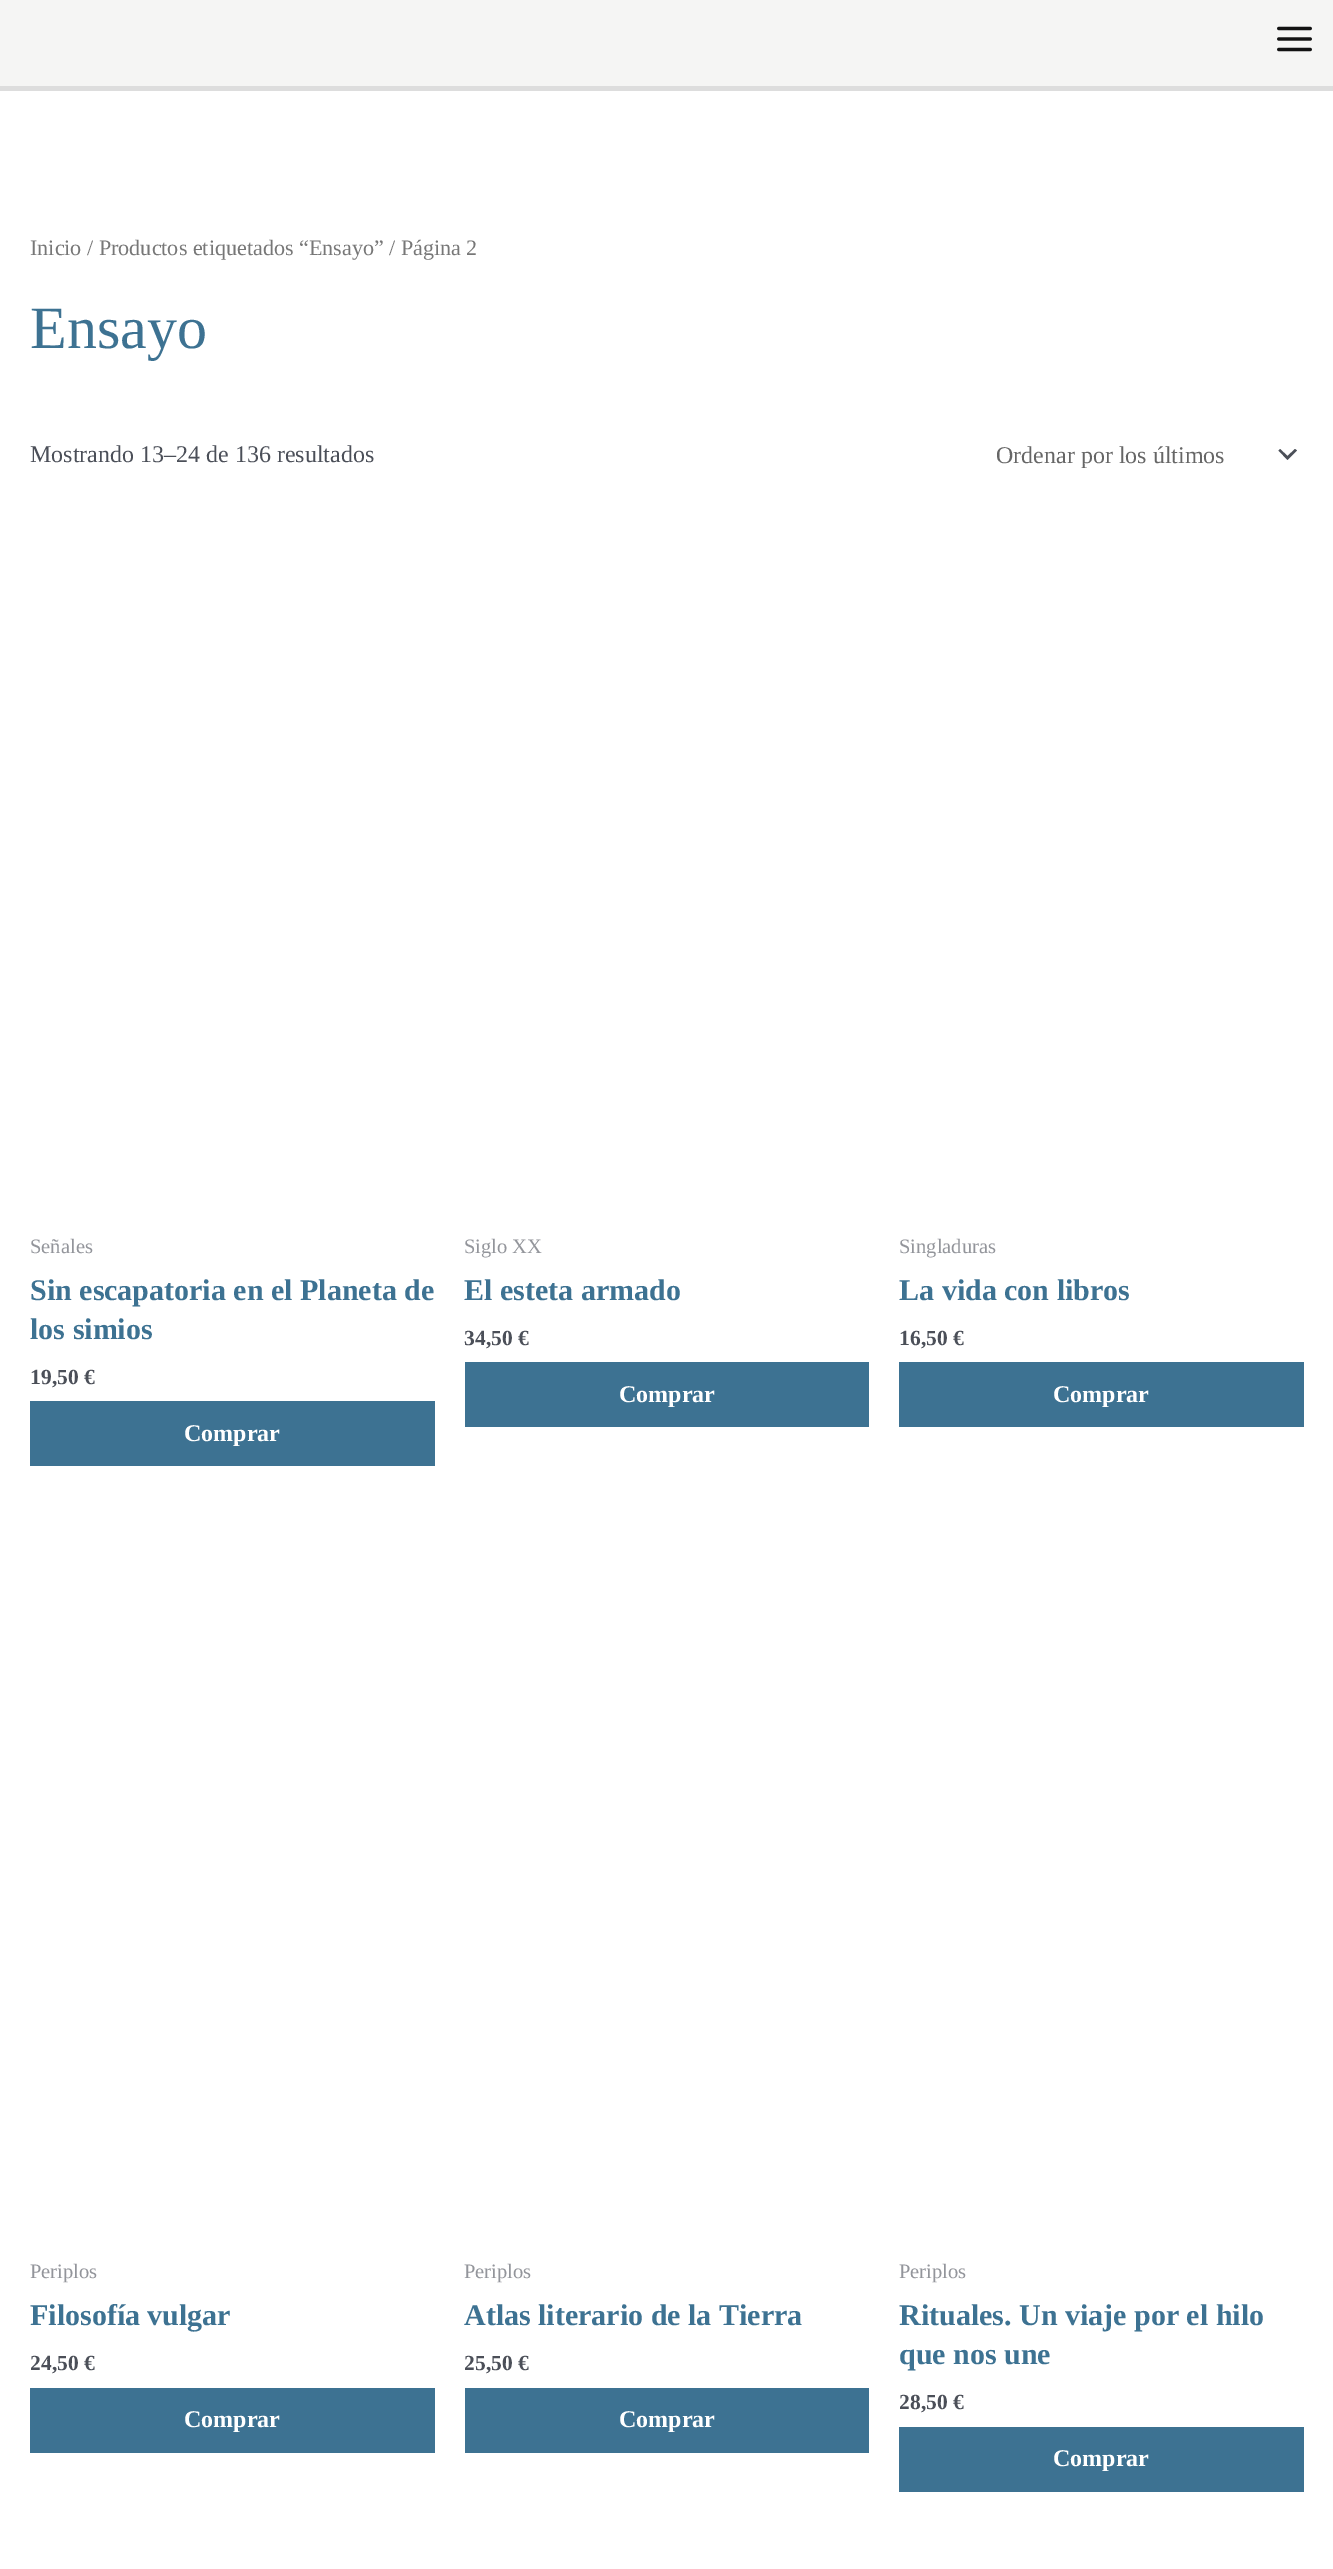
%!PS
<< /PageSize [1333 2569] >> setpagedevice
/rgb { 3 { 255 div 3 1 roll } repeat setrgbcolor } def
/font { [ exch dup neg 0 0 3 -1 roll 0 0 ] selectfont } def
/picture { 5 dict begin { /h /w /y /x /name } { exch def } forall
  gsave x y translate w h scale
  w h 8 [w 0 0 h 0 0] name (r) file false 3 colorimage grestore end } def
0 2569 translate 1 -1 scale
4 setmiterlimit
255 255 255 rgb
0 0 1333 2569 rectfill
245 245 244 rgb
0 0 1333 86 rectfill
221 221 221 rgb
0 86 1333 5 rectfill
(img/1.rgb) 1277 26 35 26 picture
75 79 88 rgb
1278.5 450.5 moveto 1287.5 460 lineto 1297 450.5 lineto 1295 449 lineto 1287.5 456 lineto 1280 449 lineto closepath fill
[
  [30 1401 405 65 61 114 146]
  [465 1362 404 65 61 114 146]
  [899 1362 405 65 61 114 146]
  [30 2388 405 65 61 114 146]
  [465 2388 404 65 61 114 146]
  [899 2427 405 65 61 114 146]
] { aload pop rgb rectfill } forall
/LiberationSerif-Regular 22.1 font
119 119 119 rgb
30 255 moveto (Inicio / Productos etiquetados “Ensayo” / Página 2) show
/LiberationSerif-Regular 60 font
61 114 146 rgb
30 348 moveto (Ensayo) show
/LiberationSerif-Regular 24 font
75 79 88 rgb
30 462 moveto (Mostrando 13–24 de 136 resultados) show
gsave
996 443 296 25 rectclip
102 102 102 rgb
996 463 moveto (Ordenar por los últimos) show
grestore
/LiberationSerif-Regular 20.5 font
147 149 155 rgb
30 1253 moveto (Señales) show
/LiberationSerif-Bold 30 font
61 114 146 rgb
30 1300 moveto (Sin escapatoria en el Planeta de) show
30 1339 moveto (los simios) show
/LiberationSerif-Bold 21.5 font
75 79 88 rgb
30 1384 moveto (19,50 €) show
/LiberationSerif-Bold 24 font
255 255 255 rgb
184 1441 moveto (Comprar) show
/LiberationSerif-Regular 20.5 font
147 149 155 rgb
464 1253 moveto (Siglo XX) show
/LiberationSerif-Bold 30 font
61 114 146 rgb
464 1300 moveto (El esteta armado) show
/LiberationSerif-Bold 21.5 font
75 79 88 rgb
464 1345 moveto (34,50 €) show
/LiberationSerif-Bold 24 font
255 255 255 rgb
619 1402 moveto (Comprar) show
/LiberationSerif-Regular 20.5 font
147 149 155 rgb
899 1253 moveto (Singladuras) show
/LiberationSerif-Bold 30 font
61 114 146 rgb
899 1300 moveto (La vida con libros) show
/LiberationSerif-Bold 21.5 font
75 79 88 rgb
899 1345 moveto (16,50 €) show
/LiberationSerif-Bold 24 font
255 255 255 rgb
1053 1402 moveto (Comprar) show
/LiberationSerif-Regular 20.5 font
147 149 155 rgb
30 2278 moveto (Periplos) show
/LiberationSerif-Bold 30 font
61 114 146 rgb
30 2325 moveto (Filosofía vulgar) show
/LiberationSerif-Bold 21.5 font
75 79 88 rgb
30 2370 moveto (24,50 €) show
/LiberationSerif-Bold 24 font
255 255 255 rgb
184 2427 moveto (Comprar) show
/LiberationSerif-Regular 20.5 font
147 149 155 rgb
464 2278 moveto (Periplos) show
/LiberationSerif-Bold 30 font
61 114 146 rgb
464 2325 moveto (Atlas literario de la Tierra) show
/LiberationSerif-Bold 21.5 font
75 79 88 rgb
464 2370 moveto (25,50 €) show
/LiberationSerif-Bold 24 font
255 255 255 rgb
619 2427 moveto (Comprar) show
/LiberationSerif-Regular 20.5 font
147 149 155 rgb
899 2278 moveto (Periplos) show
/LiberationSerif-Bold 30 font
61 114 146 rgb
899 2325 moveto (Rituales. Un viaje por el hilo) show
899 2364 moveto (que nos une) show
/LiberationSerif-Bold 21.5 font
75 79 88 rgb
899 2409 moveto (28,50 €) show
/LiberationSerif-Bold 24 font
255 255 255 rgb
1053 2466 moveto (Comprar) show
showpage
